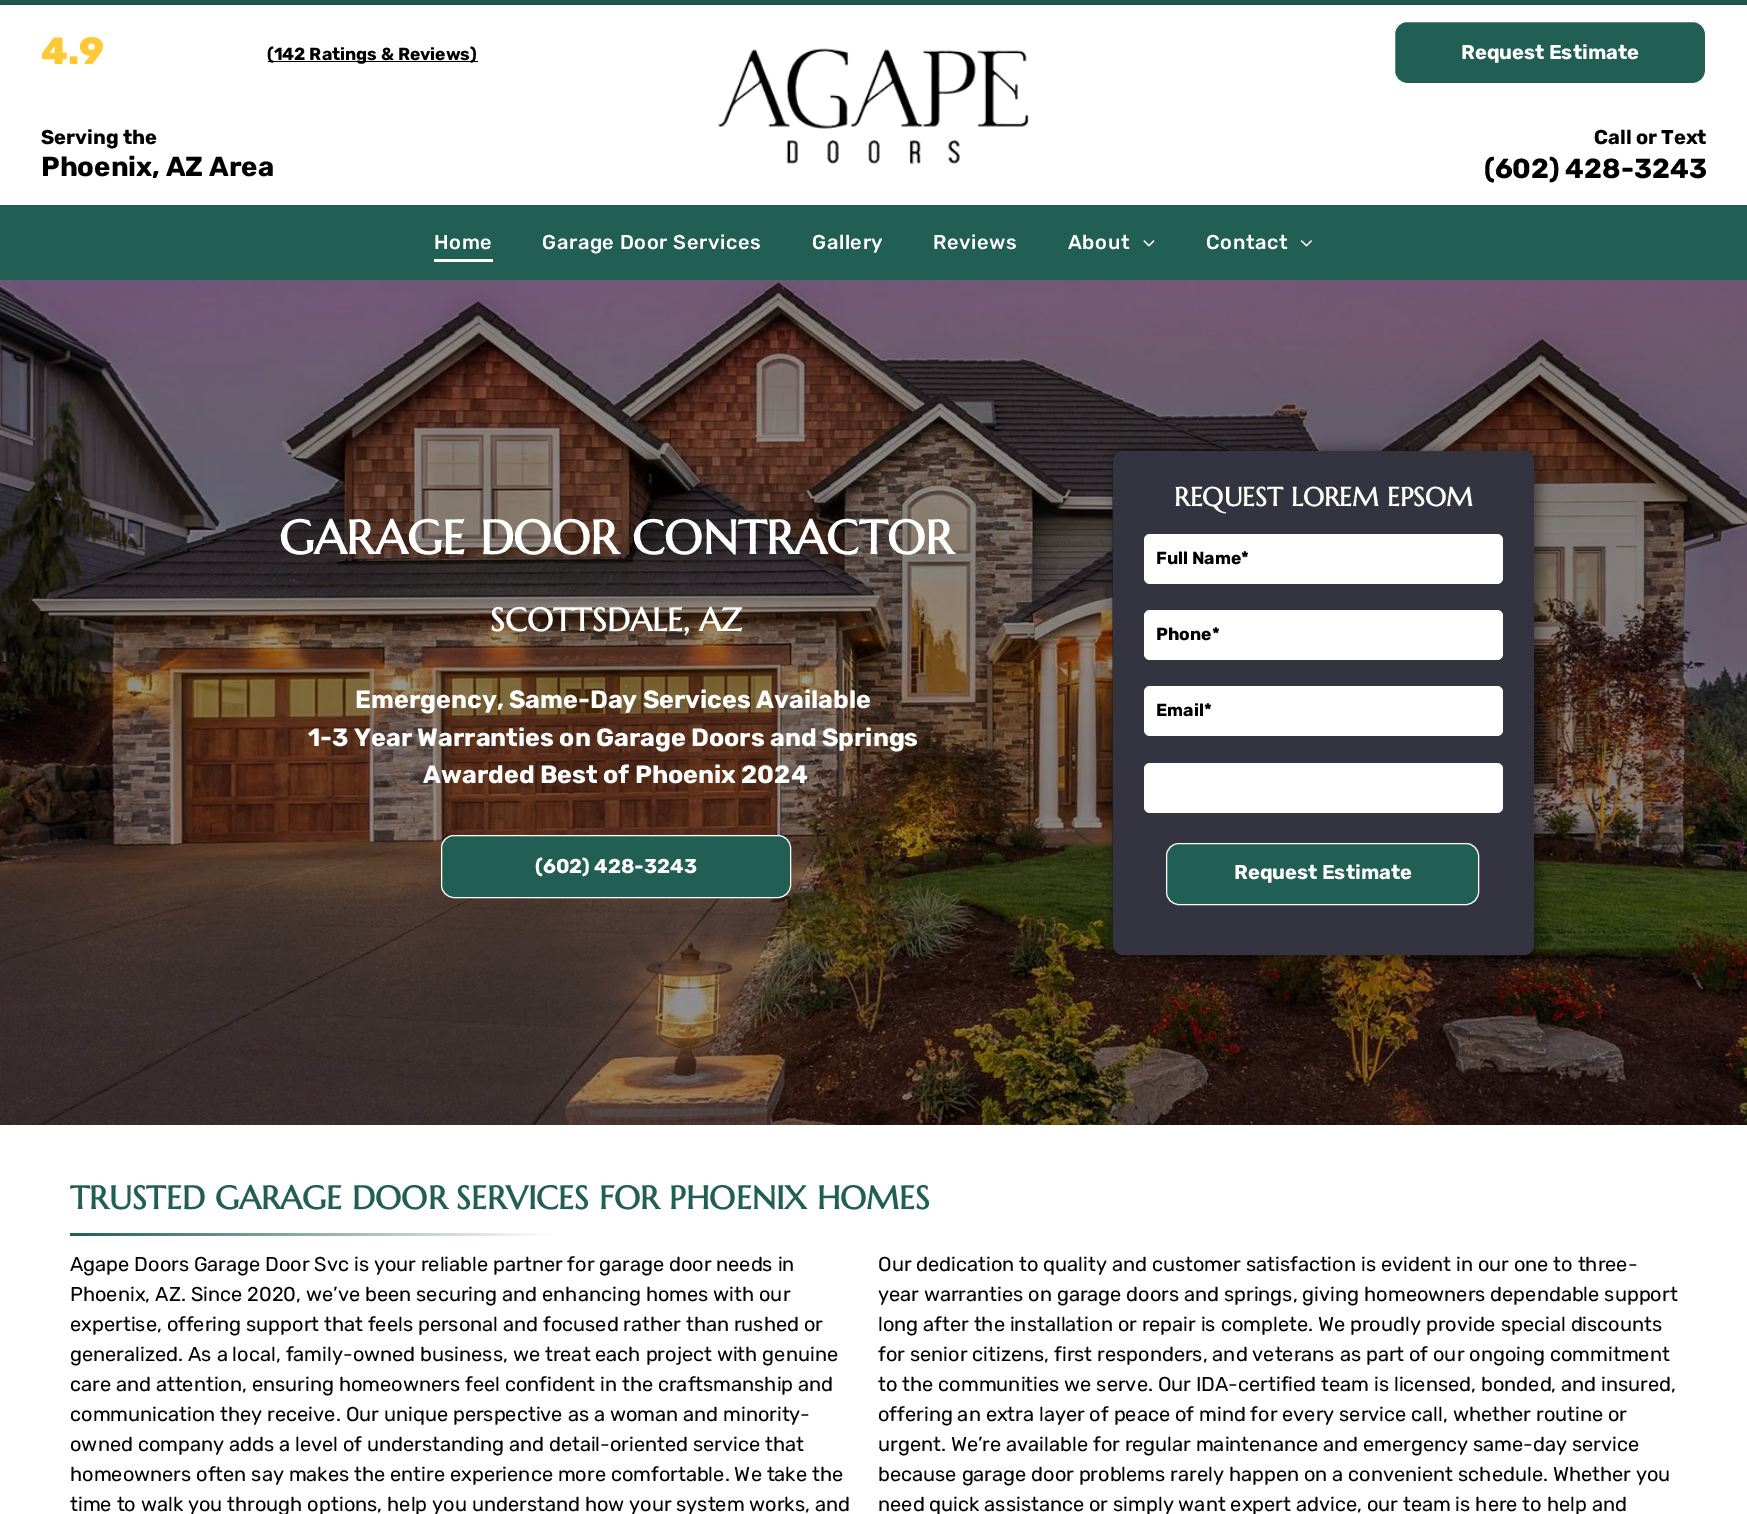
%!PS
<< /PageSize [1747 1514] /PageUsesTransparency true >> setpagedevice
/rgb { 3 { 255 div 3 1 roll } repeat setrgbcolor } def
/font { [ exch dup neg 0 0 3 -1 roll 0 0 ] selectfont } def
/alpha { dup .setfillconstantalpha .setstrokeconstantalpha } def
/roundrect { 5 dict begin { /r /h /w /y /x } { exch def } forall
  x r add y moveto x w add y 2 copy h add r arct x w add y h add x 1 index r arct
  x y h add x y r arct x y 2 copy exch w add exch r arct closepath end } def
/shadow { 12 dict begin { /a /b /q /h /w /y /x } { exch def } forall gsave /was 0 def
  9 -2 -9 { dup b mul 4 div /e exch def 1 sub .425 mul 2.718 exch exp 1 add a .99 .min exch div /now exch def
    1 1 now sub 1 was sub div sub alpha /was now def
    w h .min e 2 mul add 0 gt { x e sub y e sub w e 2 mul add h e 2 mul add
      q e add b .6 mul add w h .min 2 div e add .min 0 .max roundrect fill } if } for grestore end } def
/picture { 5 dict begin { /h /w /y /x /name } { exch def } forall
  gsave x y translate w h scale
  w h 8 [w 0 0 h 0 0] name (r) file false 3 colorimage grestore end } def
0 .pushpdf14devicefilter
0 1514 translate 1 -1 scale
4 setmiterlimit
255 255 255 rgb
0 0 1747 1514 rectfill
33 95 84 rgb
0 0 1747 5 rectfill
gsave
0 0 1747 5 rectclip
0 0 0 rgb
0 5 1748 275 0 7 0.25 shadow
grestore
0 0 0 rgb
268 61 210 1 rectfill
(img/1.rgb) 718 48 311 116 picture
33 95 84 rgb
1394.5 21.5 311 62 12.5 roundrect gsave fill grestore
255 255 255 rgb
stroke
33 95 84 rgb
0 205 1747 75 rectfill
255 255 255 rgb
434 259 59 3 rectfill
(img/2.rgb) 1143 240 12 7 picture
(img/3.rgb) 1300 240 12 7 picture
(img/4.rgb) 0 280 1747 845 picture
33 95 84 rgb
441.5 835.5 349 62 12.5 roundrect gsave fill grestore
255 255 255 rgb
stroke
0 0 0 rgb
1116 451 422 504 10 7 0.25 shadow
52 52 64 rgb
1113 451 421 504 10 roundrect fill
255 255 255 rgb
1144 534 359 50 6 roundrect fill
1144 610 359 50 6 roundrect fill
1144 686 359 50 6 roundrect fill
1144 763 359 50 6 roundrect fill
33 95 84 rgb
1166.5 843.5 312 61 12.5 roundrect gsave fill grestore
255 255 255 rgb
stroke
gsave 70 1233 moveto 553 1233 lineto 553 1236 lineto 70 1236 lineto closepath clip newpath
<< /ShadingType 2 /ColorSpace /DeviceRGB /Coords [70 1234 553 1234] /Extend [true true] /Function << /FunctionType 2 /Domain [0 1] /C0 [0.129 0.373 0.329] /C1 [1 1 1] /N 1 >> >> shfill grestore
/Rubik-ExtraBold 38 font
255 200 52 rgb
41 64 moveto (4.9) show
/Rubik-Bold 17.5 font
0 0 0 rgb
267 60 moveto (\(142 Ratings & Reviews\)) show
/Rubik-Bold 20 font
41 144 moveto (Serving the) show
/Rubik-Bold 27.5 font
41 176 moveto (Phoenix, AZ Area) show
/Rubik-Bold 20 font
255 255 255 rgb
1461 59 moveto (Request Estimate) show
0 0 0 rgb
1594 144 moveto (Call or Text) show
/Rubik-Bold 27.5 font
1484 178 moveto (\(602\) 428-3243) show
/Rubik-Medium 20 font
255 255 255 rgb
434 249 moveto 0.6 0 (Home) ashow
542 249 moveto 0.6 0 (Garage Door Services) ashow
812 249 moveto 0.6 0 (Gallery) ashow
933 249 moveto 0.6 0 (Reviews) ashow
1068 249 moveto 0.6 0 (About) ashow
1206 249 moveto 0.6 0 (Contact) ashow
/Marcellus-Bold 47.5 font
279 554 moveto (GARAGE DOOR CONTRACTOR) show
/Marcellus-Bold 32.5 font
490 631 moveto (SCOTTSDALE, AZ) show
/Rubik-Bold 25 font
[
  [(Emergency, Same-Day Services Available) 355 708]
  [(1-3 Year Warranties on Garage Doors and Springs) 308 746]
  [(Awarded Best of Phoenix 2024) 423 783]
] { aload pop moveto show } forall
/Rubik-Bold 20 font
535 873 moveto (\(602\) 428-3243) show
/Marcellus-Bold 26.25 font
1174 506 moveto (REQUEST LOREM EPSOM) show
/Rubik-Bold 17.5 font
0 0 0 rgb
[
  [(Full Name*) 1156 564]
  [(Phone*) 1156 640]
  [(Email*) 1156 716]
] { aload pop moveto show } forall
/Rubik-Bold 20 font
255 255 255 rgb
1234 879 moveto (Request Estimate) show
/Marcellus-Bold 32.5 font
33 95 84 rgb
70 1209 moveto (TRUSTED GARAGE DOOR SERVICES FOR PHOENIX HOMES) show
/Rubik-Regular 20 font
0 0 0 rgb
[
  [(Agape Doors Garage Door Svc is your reliable partner for garage door needs in) 70 1271]
  [(Phoenix, AZ. Since 2020, we’ve been securing and enhancing homes with our) 70 1301]
  [(expertise, offering support that feels personal and focused rather than rushed or) 70 1331]
  [(generalized. As a local, family-owned business, we treat each project with genuine) 70 1361]
  [(care and attention, ensuring homeowners feel confident in the craftsmanship and) 70 1391]
  [(communication they receive. Our unique perspective as a woman and minority-) 70 1421]
  [(owned company adds a level of understanding and detail-oriented service that) 70 1451]
  [(homeowners often say makes the entire experience more comfortable. We take the) 70 1481]
  [(time to walk you through options, help you understand how your system works, and) 70 1511]
  [(Our dedication to quality and customer satisfaction is evident in our one to three-) 878 1271]
  [(year warranties on garage doors and springs, giving homeowners dependable support) 878 1301]
  [(long after the installation or repair is complete. We proudly provide special discounts) 878 1331]
  [(for senior citizens, first responders, and veterans as part of our ongoing commitment) 878 1361]
  [(to the communities we serve. Our IDA-certified team is licensed, bonded, and insured,) 878 1391]
  [(offering an extra layer of peace of mind for every service call, whether routine or) 878 1421]
  [(urgent. We’re available for regular maintenance and emergency same-day service) 878 1451]
  [(because garage door problems rarely happen on a convenient schedule. Whether you) 878 1481]
  [(need quick assistance or simply want expert advice, our team is here to help and) 878 1511]
] { aload pop moveto show } forall
.poppdf14devicefilter showpage
